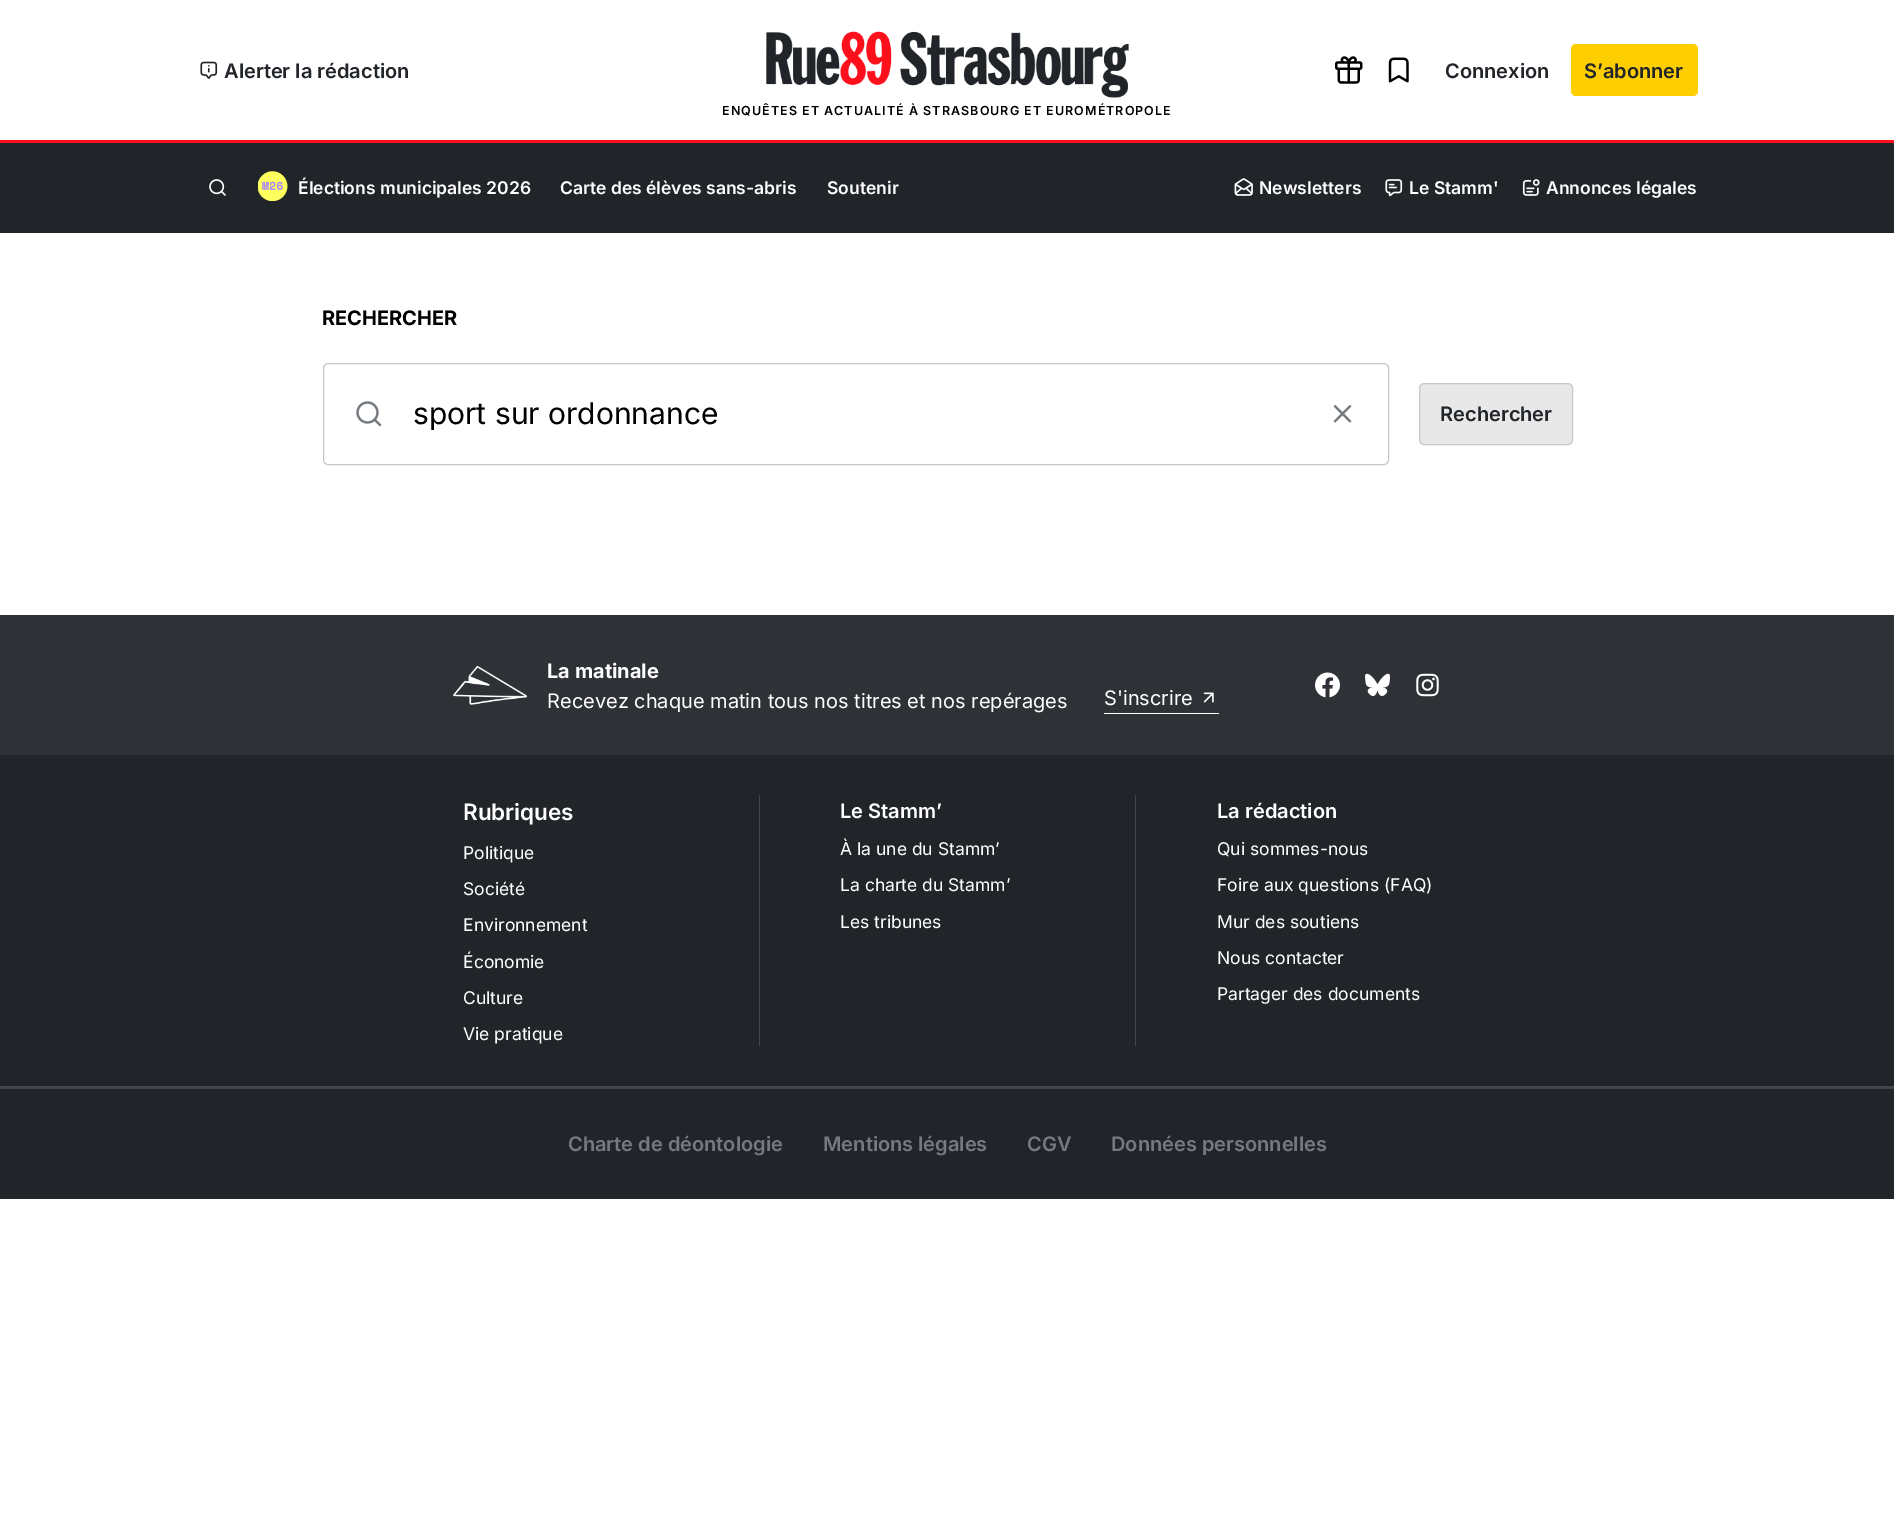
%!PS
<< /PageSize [1894 1536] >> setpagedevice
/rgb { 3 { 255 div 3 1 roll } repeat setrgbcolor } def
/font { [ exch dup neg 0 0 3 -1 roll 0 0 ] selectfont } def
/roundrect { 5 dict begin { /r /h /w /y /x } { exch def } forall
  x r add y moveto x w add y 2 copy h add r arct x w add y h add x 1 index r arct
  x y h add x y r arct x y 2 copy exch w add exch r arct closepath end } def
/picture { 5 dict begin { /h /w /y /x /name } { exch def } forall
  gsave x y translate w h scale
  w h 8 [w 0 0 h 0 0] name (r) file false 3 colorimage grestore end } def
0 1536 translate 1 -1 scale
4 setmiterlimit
255 255 255 rgb
0 0 1894 1536 rectfill
253 15 27 rgb
0 140 1894 3 rectfill
(img/1.rgb) 200 61 18 18 picture
(img/2.rgb) 1335 56 28 28 picture
(img/3.rgb) 1388 57 21 26 picture
254 206 0 rgb
1571 44 127 52 5 roundrect fill
(img/4.rgb) 766 31 363 67 picture
33 37 41 rgb
0 143 1894 90 rectfill
(img/5.rgb) 209 179 17 17 picture
(img/6.rgb) 258 171 30 30 picture
(img/7.rgb) 1234 178 19 18 picture
(img/8.rgb) 1385 179 18 18 picture
(img/9.rgb) 1522 179 18 17 picture
200 200 200 rgb
323.5 363.5 1065 101 4.5 roundrect stroke
(img/10.rgb) 356 401 26 26 picture
(img/11.rgb) 1333 405 19 18 picture
232 232 232 rgb
1419.5 383.5 153 61 4.5 roundrect gsave fill grestore
200 200 200 rgb
stroke
46 49 53 rgb
0 615 1894 140 rectfill
(img/12.rgb) 453 665 74 40 picture
255 255 255 rgb
1104 713 115 1 rectfill
(img/13.rgb) 1203 692 11 11 picture
(img/14.rgb) 1315 672 25 26 picture
(img/15.rgb) 1365 673 25 23 picture
(img/16.rgb) 1416 673 23 24 picture
[
  [0 755 1894 444 33 37 41]
  [759 795 1 251 66 70 75]
  [1135 795 1 251 66 70 75]
  [0 1086 1894 3 66 70 75]
] { aload pop rgb rectfill } forall
/Inter-SemiBold 20 font
33 37 41 rgb
[
  [(Alerter la rédaction) 224 78]
  [(Connexion) 1445 78]
  [(S’abonner) 1584 78]
] { aload pop moveto show } forall
/Inter-SemiBold 12.5 font
0 0 0 rgb
722 115 moveto 1.05 0 (ENQUÊTES ET ACTUALITÉ À STRASBOURG ET EUROMÉTROPOLE) ashow
/Inter-SemiBold 17.5 font
255 255 255 rgb
[
  [(Élections municipales 2026) 298 194]
  [(Carte des élèves sans-abris) 560 194]
  [(Soutenir) 827 194]
  [(Newsletters) 1259 194]
  [(Le Stamm') 1409 194]
  [(Annonces légales) 1546 194]
] { aload pop moveto show } forall
/Inter-Bold 20 font
0 0 0 rgb
322 325 moveto (RECHERCHER) show
/Inter-Regular 30 font
413 424 moveto (sport sur ordonnance) show
/Inter-SemiBold 20 font
33 37 41 rgb
1440 421 moveto (Rechercher) show
/Inter-Bold 20 font
255 255 255 rgb
547 678 moveto (La matinale) show
/Inter-Regular 20 font
547 708 moveto (Recevez chaque matin tous nos titres et nos repérages) show
1104 705 moveto (S'inscrire) show
/Inter-SemiBold 22.5 font
463 820 moveto (Rubriques) show
/Inter-Regular 17.5 font
[
  [(Politique) 463 859]
  [(Société) 463 895]
  [(Environnement) 463 931]
  [(Économie) 463 968]
  [(Culture) 463 1004]
  [(Vie pratique) 463 1040]
] { aload pop moveto show } forall
/Inter-SemiBold 20 font
840 818 moveto (Le Stamm’) show
/Inter-Regular 17.5 font
[
  [(À la une du Stamm’) 840 855]
  [(La charte du Stamm’) 840 891]
  [(Les tribunes) 840 928]
] { aload pop moveto show } forall
/Inter-SemiBold 20 font
1217 818 moveto (La rédaction) show
/Inter-Regular 17.5 font
[
  [(Qui sommes-nous) 1217 855]
  [(Foire aux questions \(FAQ\)) 1217 891]
  [(Mur des soutiens) 1217 928]
  [(Nous contacter) 1217 964]
  [(Partager des documents) 1217 1000]
] { aload pop moveto show } forall
/Inter-SemiBold 20 font
117 122 127 rgb
[
  [(Charte de déontologie) 568 1151]
  [(Mentions légales) 823 1151]
  [(CGV) 1027 1151]
  [(Données personnelles) 1111 1151]
] { aload pop moveto show } forall
showpage
